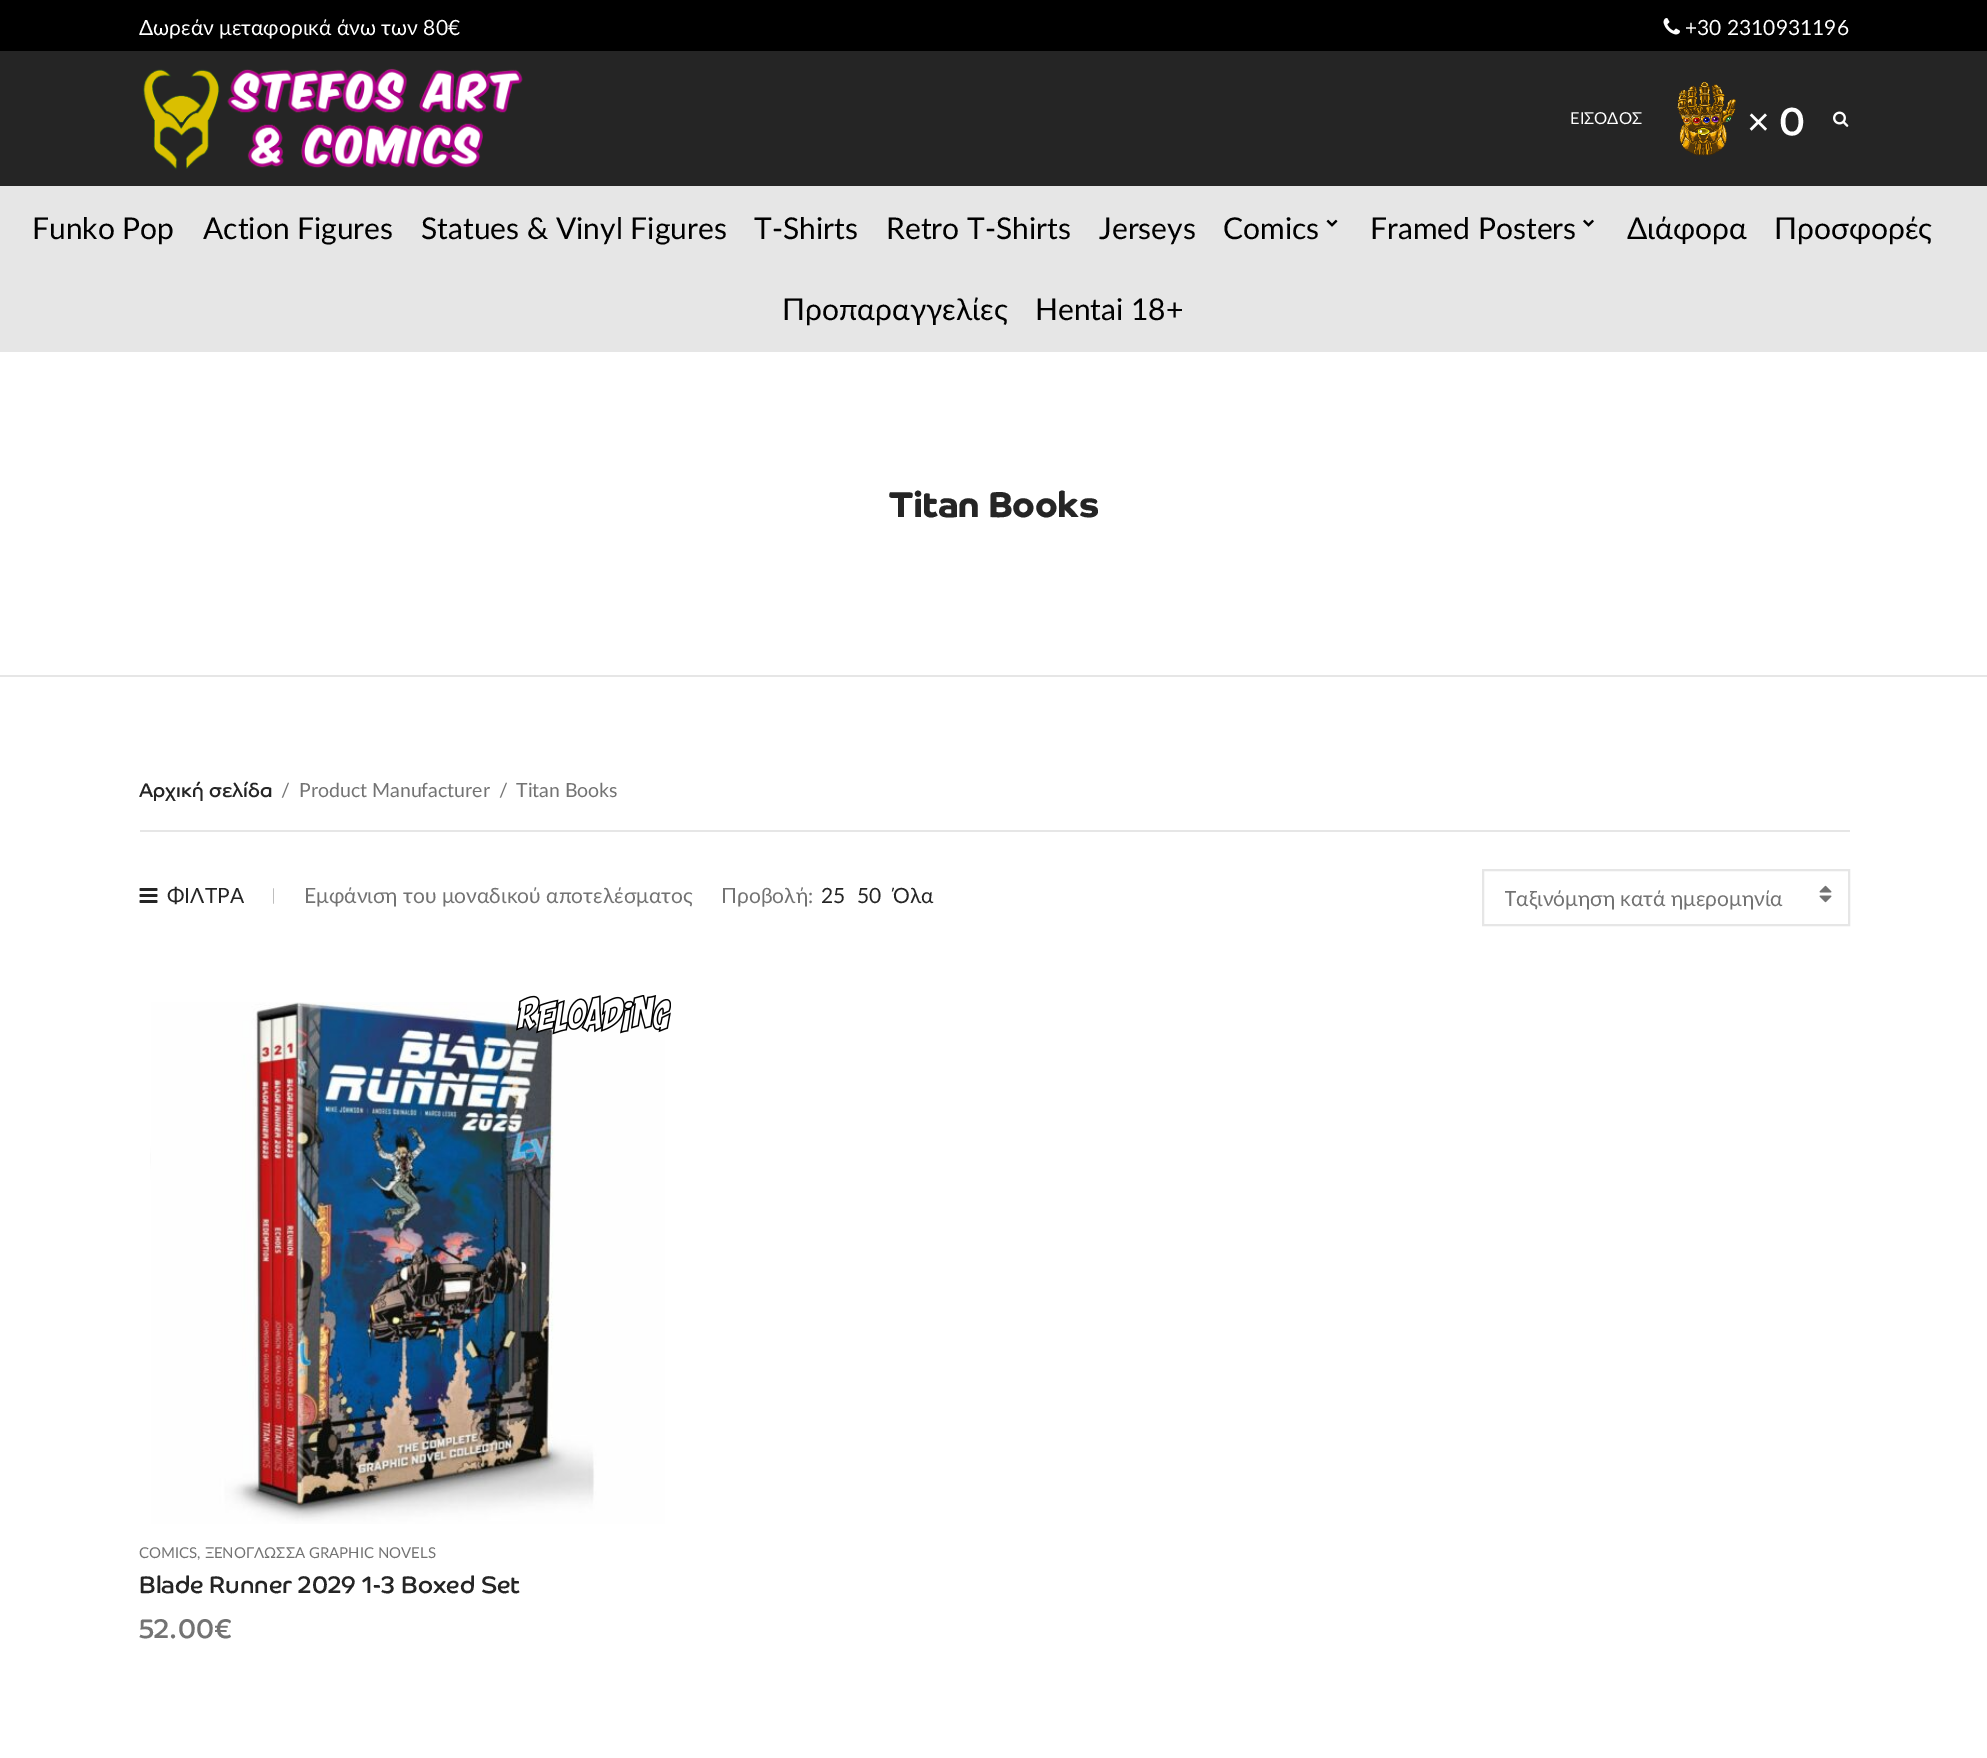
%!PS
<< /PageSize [1987 1758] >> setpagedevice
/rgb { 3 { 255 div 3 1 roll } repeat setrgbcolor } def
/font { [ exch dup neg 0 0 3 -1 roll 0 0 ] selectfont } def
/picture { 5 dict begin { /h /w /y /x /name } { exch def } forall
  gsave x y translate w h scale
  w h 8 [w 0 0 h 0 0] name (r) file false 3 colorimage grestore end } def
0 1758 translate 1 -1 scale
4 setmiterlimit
255 255 255 rgb
0 0 1987 1758 rectfill
[
  [0 51 1987 135 37 37 37]
  [0 186 1987 166 230 230 230]
  [0 0 1987 51 0 0 0]
] { aload pop rgb rectfill } forall
(img/1.rgb) 1663 18 17 17 picture
(img/2.rgb) 143 68 380 102 picture
(img/3.rgb) 1677 81 60 75 picture
(img/4.rgb) 1833 111 16 16 picture
(img/5.rgb) 1326 219 12 8 picture
(img/6.rgb) 1583 219 11 8 picture
230 230 230 rgb
0 675 1987 2 rectfill
140 830 1710 2 rectfill
(img/7.rgb) 139 888 19 15 picture
2 setlinewidth
1483 870 366 55 rectstroke
(img/8.rgb) 1819 885 13 18 picture
(img/11.rgb) 151 1002 514 522 picture
(img/9.rgb) 516 995 155 40 picture
(img/10.rgb) 150 1106 1 300 picture
/Lato-Regular 21 font
255 255 255 rgb
139 35 moveto (Δωρεάν μεταφορικά άνω των 80€) show
1685 35 moveto (+30 2310931196) show
/Lato-Regular 16.5 font
1570 124 moveto (ΕΙΣΟΔΟΣ) show
/LiberationSans-Regular 39 font
1747 135 moveto (×) show
/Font-Regular 39 font
1779 135 moveto (0) show
/Lato-Regular 30 font
0 0 0 rgb
[
  [(Funko Pop) 32 239]
  [(Action Figures) 203 239]
  [(Statues & Vinyl Figures) 421 239]
  [(T-Shirts) 754 239]
  [(Retro T-Shirts) 886 239]
  [(Jerseys) 1099 239]
  [(Comics) 1223 239]
  [(Framed Posters) 1370 239]
  [(Διάφορα) 1627 239]
  [(Προσφορές) 1774 239]
  [(Προπαραγγελίες) 782 320]
  [(Hentai 18+) 1035 320]
] { aload pop moveto show } forall
/Font-Bold 36 font
37 37 37 rgb
889 517 moveto -0.4 0 (Titan Books) ashow
/Font-Regular 19.5 font
139 797 moveto (Αρχική σελίδα) show
/Lato-Regular 19.5 font
115 115 115 rgb
[
  [(/) 281 797]
  [(Product Manufacturer) 299 797]
  [(/) 499 797]
  [(Titan Books) 516 797]
] { aload pop moveto show } forall
/Lato-Regular 21 font
37 37 37 rgb
167 903 moveto (ΦΙΛΤΡΑ) show
/Lato-Regular 16.5 font
190 190 190 rgb
271 901 moveto (|) show
/Lato-Regular 21 font
115 115 115 rgb
304 903 moveto (Εμφάνιση του μοναδικού αποτελέσματος) show
721 903 moveto (Προβολή:) show
37 37 37 rgb
[
  [(25) 821 903]
  [(50) 857 903]
  [(Όλα) 893 903]
] { aload pop moveto show } forall
gsave
1505 882 306 30 rectclip
115 115 115 rgb
1504 906 moveto (Ταξινόμηση κατά ημερομηνία) show
grestore
/Lato-Regular 15 font
115 115 115 rgb
139 1558 moveto (COMICS, ΞΕΝΟΓΛΩΣΣΑ GRAPHIC NOVELS) show
/Font-Regular 24 font
37 37 37 rgb
139 1593 moveto (Blade Runner 2029 1-3 Boxed Set) show
/Font-Regular 27 font
115 115 115 rgb
139 1638 moveto (52.00€) show
showpage
